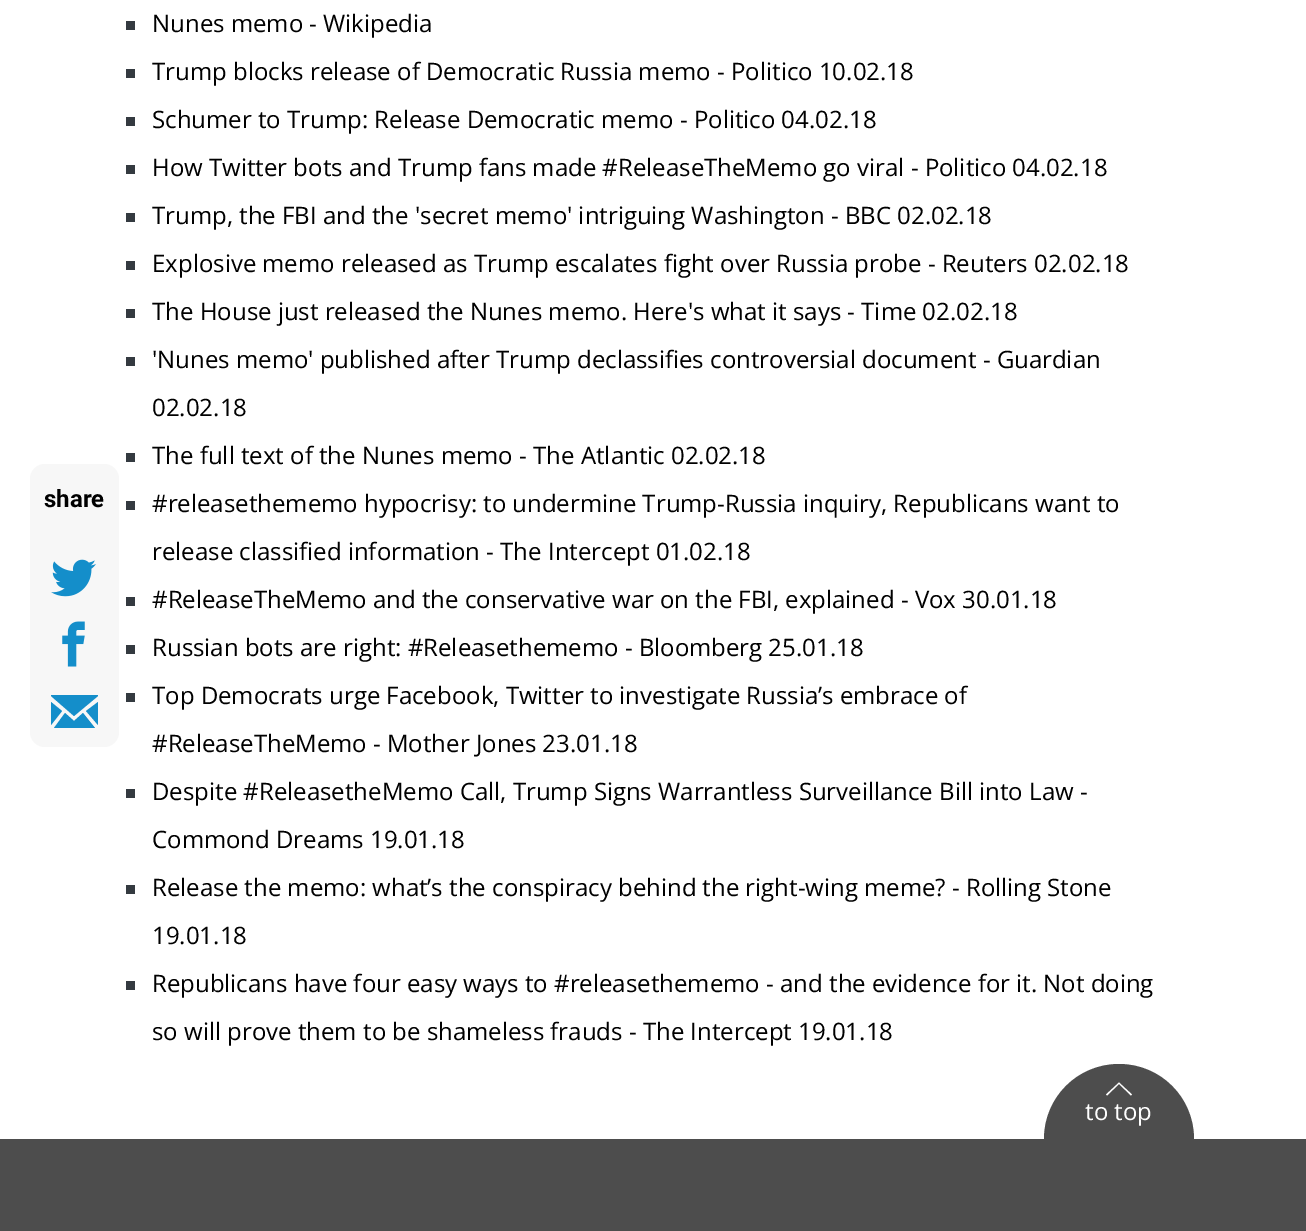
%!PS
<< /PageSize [1306 1231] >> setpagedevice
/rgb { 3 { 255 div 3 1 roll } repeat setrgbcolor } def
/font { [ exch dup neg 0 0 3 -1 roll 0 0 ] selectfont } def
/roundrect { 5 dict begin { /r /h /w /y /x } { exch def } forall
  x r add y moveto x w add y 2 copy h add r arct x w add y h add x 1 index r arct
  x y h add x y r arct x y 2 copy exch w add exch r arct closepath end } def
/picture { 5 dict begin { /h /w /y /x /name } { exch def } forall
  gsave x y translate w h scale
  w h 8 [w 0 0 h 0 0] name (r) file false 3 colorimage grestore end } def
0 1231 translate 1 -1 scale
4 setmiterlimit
255 255 255 rgb
0 0 1306 1231 rectfill
247 247 247 rgb
30 464 89 283 15 roundrect fill
(img/1.rgb) 51 559 45 38 picture
(img/2.rgb) 62 621 23 46 picture
20 142 202 rgb
74 721 moveto 65 713 lineto 54 728 lineto 95 728 lineto 83 713 lineto closepath 98 702 moveto 86 711 lineto 98 725 lineto closepath 51 725 moveto 62 711 lineto 51 702 lineto closepath 51 695 moveto 51 696 lineto 74 716 lineto 98 696 lineto 98 695 lineto closepath fill
[
  [126 21 9 9 52 58 64]
  [126 69 9 9 52 58 64]
  [126 117 9 9 52 58 64]
  [126 165 9 9 52 58 64]
  [126 213 9 9 52 58 64]
  [126 261 9 9 52 58 64]
  [126 309 9 9 52 58 64]
  [126 357 9 9 52 58 64]
  [126 453 9 9 52 58 64]
  [126 501 9 9 52 58 64]
  [126 597 9 9 52 58 64]
  [126 645 9 9 52 58 64]
  [126 693 9 9 52 58 64]
  [126 789 9 9 52 58 64]
  [126 885 9 9 52 58 64]
  [126 981 9 9 52 58 64]
  [0 1139 1306 92 77 77 77]
] { aload pop rgb rectfill } forall
1119 1064 moveto 1160.5 1064 1194 1097.5 1194 1139 curveto 1194 1214 lineto 1044 1214 lineto 1044 1139 lineto 1044 1097.5 1077.5 1064 1119 1064 curveto closepath fill
255 255 255 rgb
1106 1094.5 moveto 1119 1082.5 lineto 1132 1094.5 lineto 1131 1095.5 lineto 1119 1084 lineto 1107 1095.5 lineto closepath fill
/Roboto-Bold 24 font
0 0 0 rgb
44 507 moveto (share) show
/OpenSans-Regular 24 font
[
  [(Nunes memo - Wikipedia) 152 32]
  [(Trump blocks release of Democratic Russia memo - Politico 10.02.18) 152 80]
  [(Schumer to Trump: Release Democratic memo - Politico 04.02.18) 152 128]
  [(How Twitter bots and Trump fans made #ReleaseTheMemo go viral - Politico 04.02.18) 152 176]
  [(Trump, the FBI and the 'secret memo' intriguing Washington - BBC 02.02.18) 152 224]
  [(Explosive memo released as Trump escalates fight over Russia probe - Reuters 02.02.18) 152 272]
  [(The House just released the Nunes memo. Here's what it says - Time 02.02.18) 152 320]
  [('Nunes memo' published after Trump declassifies controversial document - Guardian) 152 368]
  [(02.02.18) 152 416]
  [(The full text of the Nunes memo - The Atlantic 02.02.18) 152 464]
  [(#releasethememo hypocrisy: to undermine Trump-Russia inquiry, Republicans want to) 152 512]
  [(release classified information - The Intercept 01.02.18) 152 560]
  [(#ReleaseTheMemo and the conservative war on the FBI, explained - Vox 30.01.18) 152 608]
  [(Russian bots are right: #Releasethememo - Bloomberg 25.01.18) 152 656]
  [(Top Democrats urge Facebook, Twitter to investigate Russia’s embrace of) 152 704]
  [(#ReleaseTheMemo - Mother Jones 23.01.18) 152 752]
  [(Despite #ReleasetheMemo Call, Trump Signs Warrantless Surveillance Bill into Law -) 152 800]
  [(Commond Dreams 19.01.18) 152 848]
  [(Release the memo: what’s the conspiracy behind the right-wing meme? - Rolling Stone) 152 896]
  [(19.01.18) 152 944]
  [(Republicans have four easy ways to #releasethememo - and the evidence for it. Not doing) 152 992]
  [(so will prove them to be shameless frauds - The Intercept 19.01.18) 152 1040]
] { aload pop moveto show } forall
255 255 255 rgb
1085 1120 moveto (to top) show
showpage
